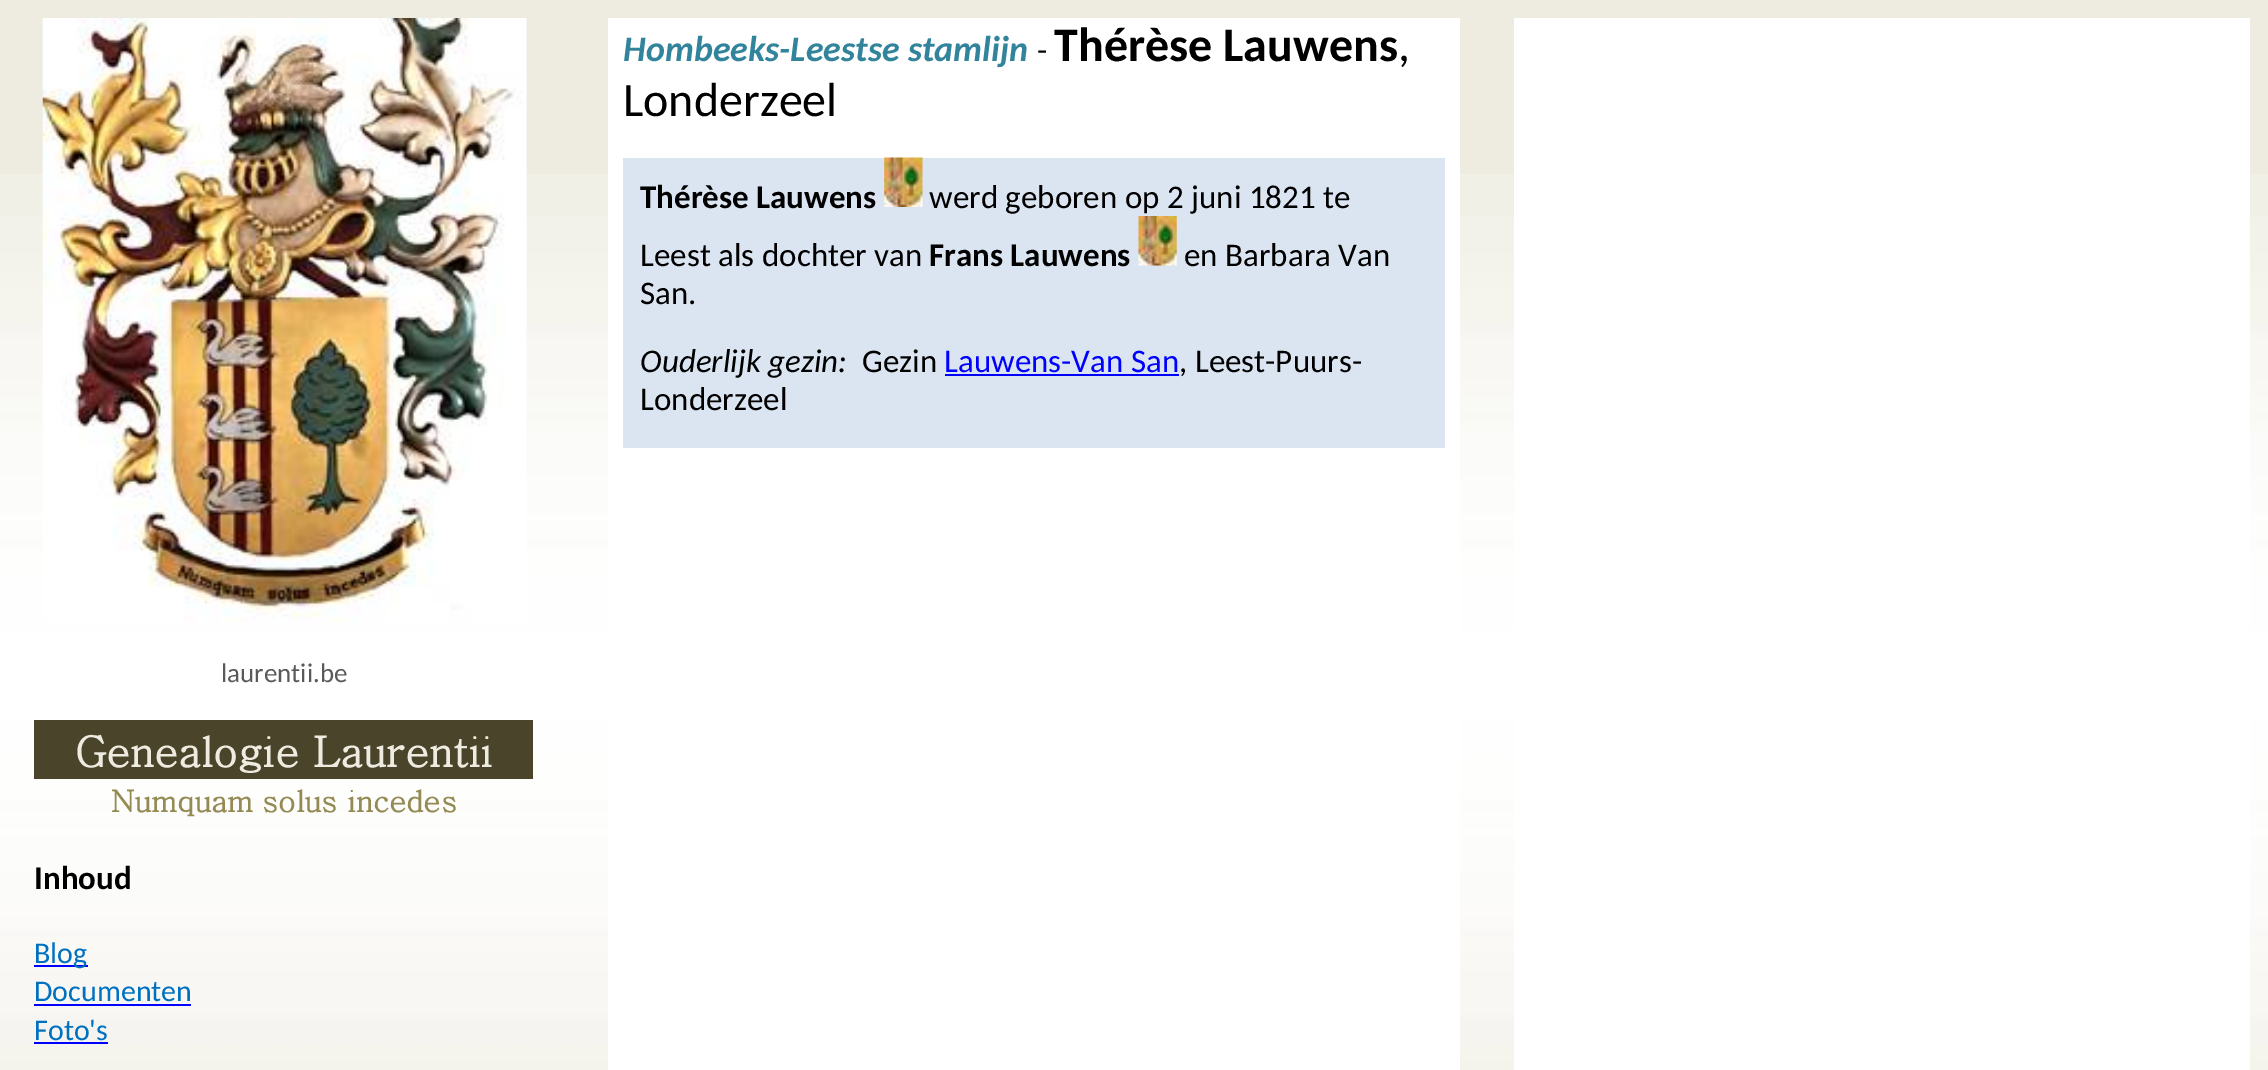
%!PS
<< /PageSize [2268 1070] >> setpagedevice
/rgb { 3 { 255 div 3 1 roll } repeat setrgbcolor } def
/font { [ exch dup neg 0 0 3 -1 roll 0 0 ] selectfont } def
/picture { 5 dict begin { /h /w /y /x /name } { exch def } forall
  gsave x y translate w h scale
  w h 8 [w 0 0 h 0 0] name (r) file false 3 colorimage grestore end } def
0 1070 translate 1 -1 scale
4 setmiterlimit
238 236 225 rgb
0 0 2268 1070 rectfill
(img/1.rgb) 0 174 2268 896 picture
255 255 255 rgb
608 18 852 1052 rectfill
219 229 241 rgb
623 158 822 290 rectfill
(img/2.rgb) 884 157 39 50 picture
(img/3.rgb) 1138 216 39 50 picture
0 0 255 rgb
945 374 234 2 rectfill
255 255 255 rgb
1514 18 736 1052 rectfill
(img/4.rgb) 42 18 485 604 picture
[
  [34 720 499 59 74 68 42]
  [34 965 54 2 0 0 255]
  [34 1004 157 2 0 0 255]
  [34 1042 74 2 0 0 255]
] { aload pop rgb rectfill } forall
/Carlito-BoldItalic 36 font
49 132 155 rgb
623 61 moveto (Hombeeks-Leestse stamlijn) show
/Carlito-Regular 33 font
0 0 0 rgb
1037 61 moveto (-) show
/Carlito-Bold 48 font
1054 61 moveto (Thérèse Lauwens) show
/Carlito-Regular 48 font
1398 61 moveto (,) show
623 116 moveto (Londerzeel) show
/Carlito-Bold 33 font
640 208 moveto (Thérèse Lauwens) show
/Carlito-Regular 33 font
929 208 moveto (werd geboren op 2 juni 1821 te) show
640 266 moveto (Leest als dochter van) show
/Carlito-Bold 33 font
929 266 moveto (Frans Lauwens) show
/Carlito-Regular 33 font
1184 266 moveto (en Barbara Van) show
640 304 moveto (San.) show
/Carlito-Italic 33 font
640 372 moveto (Ouderlijk gezin:) show
/Carlito-Regular 33 font
862 372 moveto (Gezin) show
0 0 255 rgb
944 372 moveto (Lauwens-Van San) show
0 0 0 rgb
1179 372 moveto (, Leest-Puurs-) show
640 410 moveto (Londerzeel) show
/Carlito-Regular 27 font
89 89 89 rgb
221 682 moveto (laurentii.be) show
/Batang-Bold 42 font
238 236 225 rgb
75 767 moveto (Genealogie Laurentii) show
/Batang-Bold 30 font
148 138 84 rgb
111 812 moveto (Numquam solus incedes) show
/Carlito-Bold 33 font
0 0 0 rgb
34 889 moveto (Inhoud) show
/Carlito-Regular 30 font
0 112 192 rgb
[
  [(Blog) 34 963]
  [(Documenten) 34 1001]
  [(Foto's) 34 1040]
] { aload pop moveto show } forall
showpage
